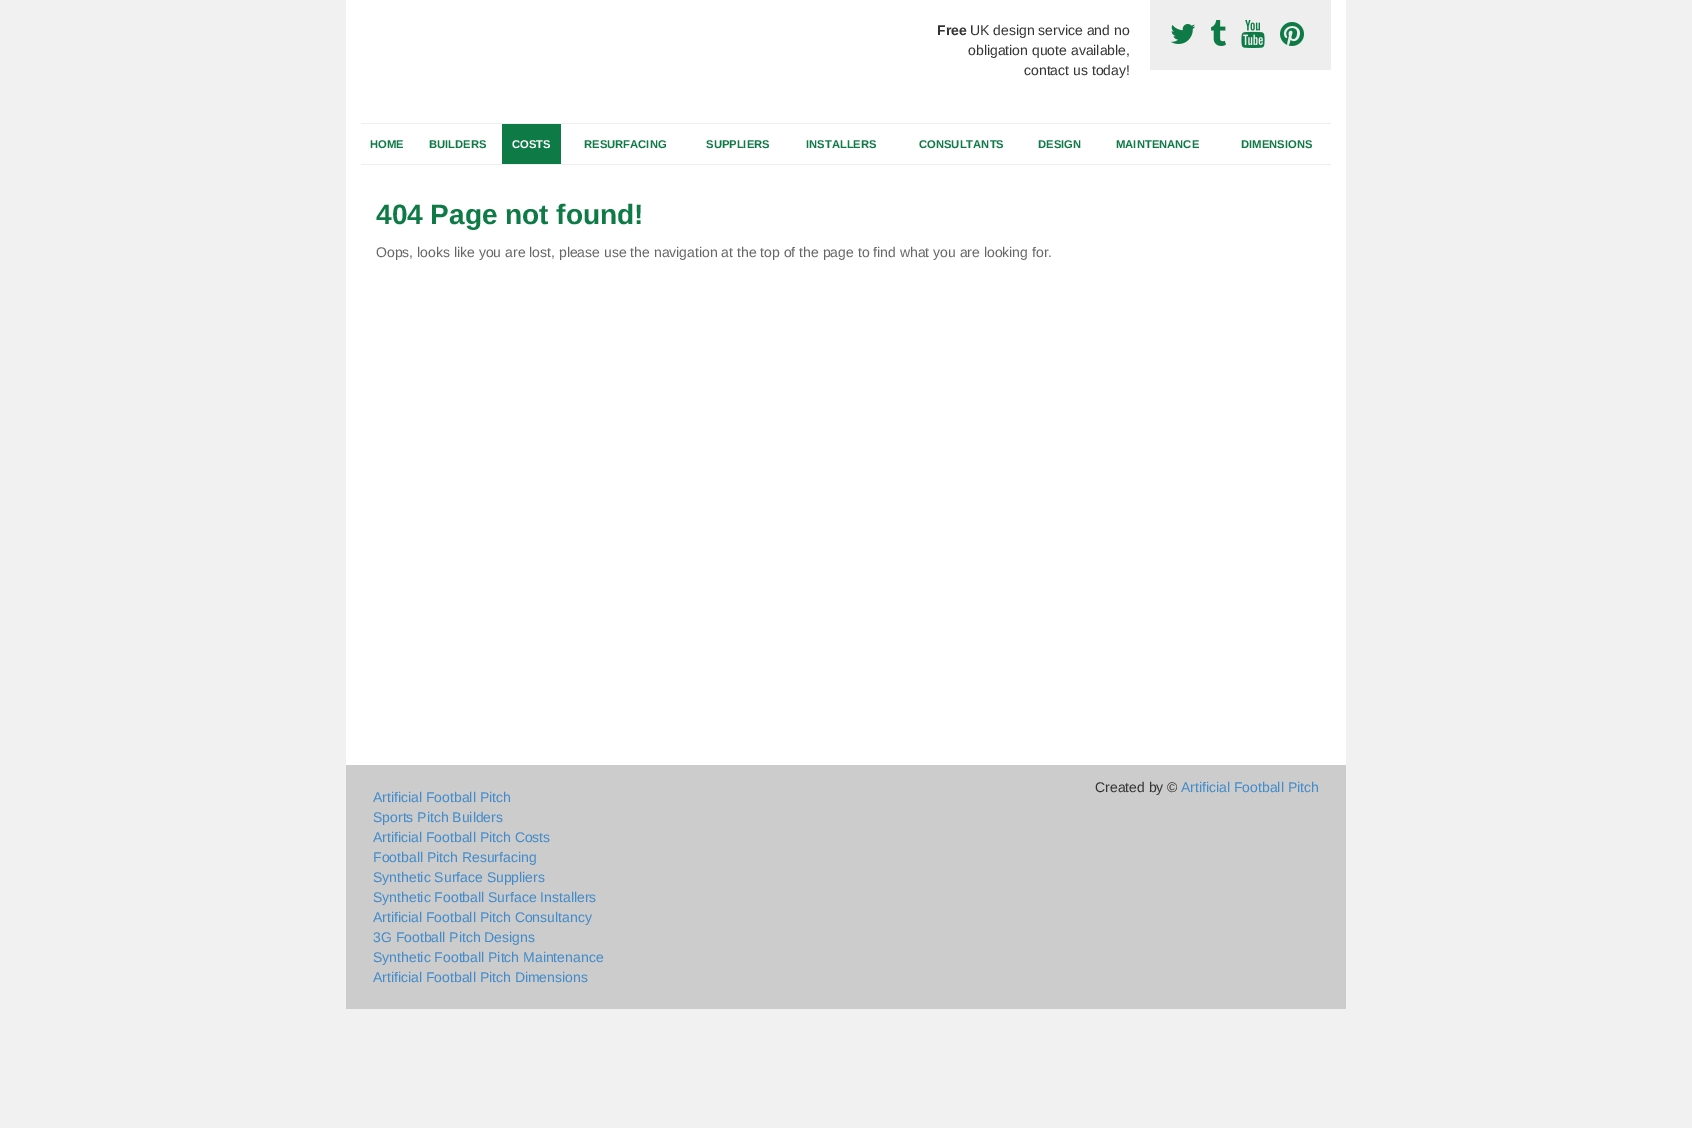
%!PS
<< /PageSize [1692 1128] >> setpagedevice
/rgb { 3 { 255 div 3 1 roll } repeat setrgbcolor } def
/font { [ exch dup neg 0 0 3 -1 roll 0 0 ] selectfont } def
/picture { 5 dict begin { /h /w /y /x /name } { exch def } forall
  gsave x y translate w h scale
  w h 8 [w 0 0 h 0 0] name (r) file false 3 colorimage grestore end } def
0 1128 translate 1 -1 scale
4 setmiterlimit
241 241 241 rgb
0 0 1692 1128 rectfill
255 255 255 rgb
346 0 1000 765 rectfill
238 238 238 rgb
1150 0 181 70 rectfill
(img/1.rgb) 1170 24 26 20 picture
(img/2.rgb) 1211 20 15 26 picture
(img/3.rgb) 1241 20 24 28 picture
(img/4.rgb) 1280 22 24 24 picture
[
  [361 123 970 1 238 238 238]
  [361 164 970 1 238 238 238]
  [502 124 59 40 14 122 70]
  [346 765 1000 244 204 204 204]
] { aload pop rgb rectfill } forall
/LiberationSans-Bold 14 font
51 51 51 rgb
937 35 moveto (Free) show
/LiberationSans-Regular 14 font
[
  [(UK design service and no) 970 35]
  [(obligation quote available,) 968 55]
  [(contact us today!) 1024 75]
] { aload pop moveto show } forall
/LiberationSans-Bold 11.25 font
14 122 70 rgb
370 148 moveto (HOME) show
429 148 moveto (BUILDERS) show
255 255 255 rgb
512 148 moveto (COSTS) show
14 122 70 rgb
[
  [(RESURFACING) 584 148]
  [(SUPPLIERS) 706 148]
  [(INSTALLERS) 806 148]
  [(CONSULTANTS) 919 148]
  [(DESIGN) 1038 148]
  [(MAINTENANCE) 1116 148]
  [(DIMENSIONS) 1241 148]
] { aload pop moveto show } forall
/LiberationSans-Bold 28 font
376 224 moveto (404 Page not found!) show
/LiberationSans-Regular 14 font
102 102 102 rgb
376 257 moveto (Oops, looks like you are lost, please use the navigation at the top of the page to find what you are looking for.) show
51 51 51 rgb
1095 792 moveto (Created by ©) show
66 139 202 rgb
[
  [(Artificial Football Pitch) 1181 792]
  [(Artificial Football Pitch) 373 802]
  [(Sports Pitch Builders) 373 822]
  [(Artificial Football Pitch Costs) 373 842]
  [(Football Pitch Resurfacing) 373 862]
  [(Synthetic Surface Suppliers) 373 882]
  [(Synthetic Football Surface Installers) 373 902]
  [(Artificial Football Pitch Consultancy) 373 922]
  [(3G Football Pitch Designs) 373 942]
  [(Synthetic Football Pitch Maintenance) 373 962]
  [(Artificial Football Pitch Dimensions) 373 982]
] { aload pop moveto show } forall
showpage
